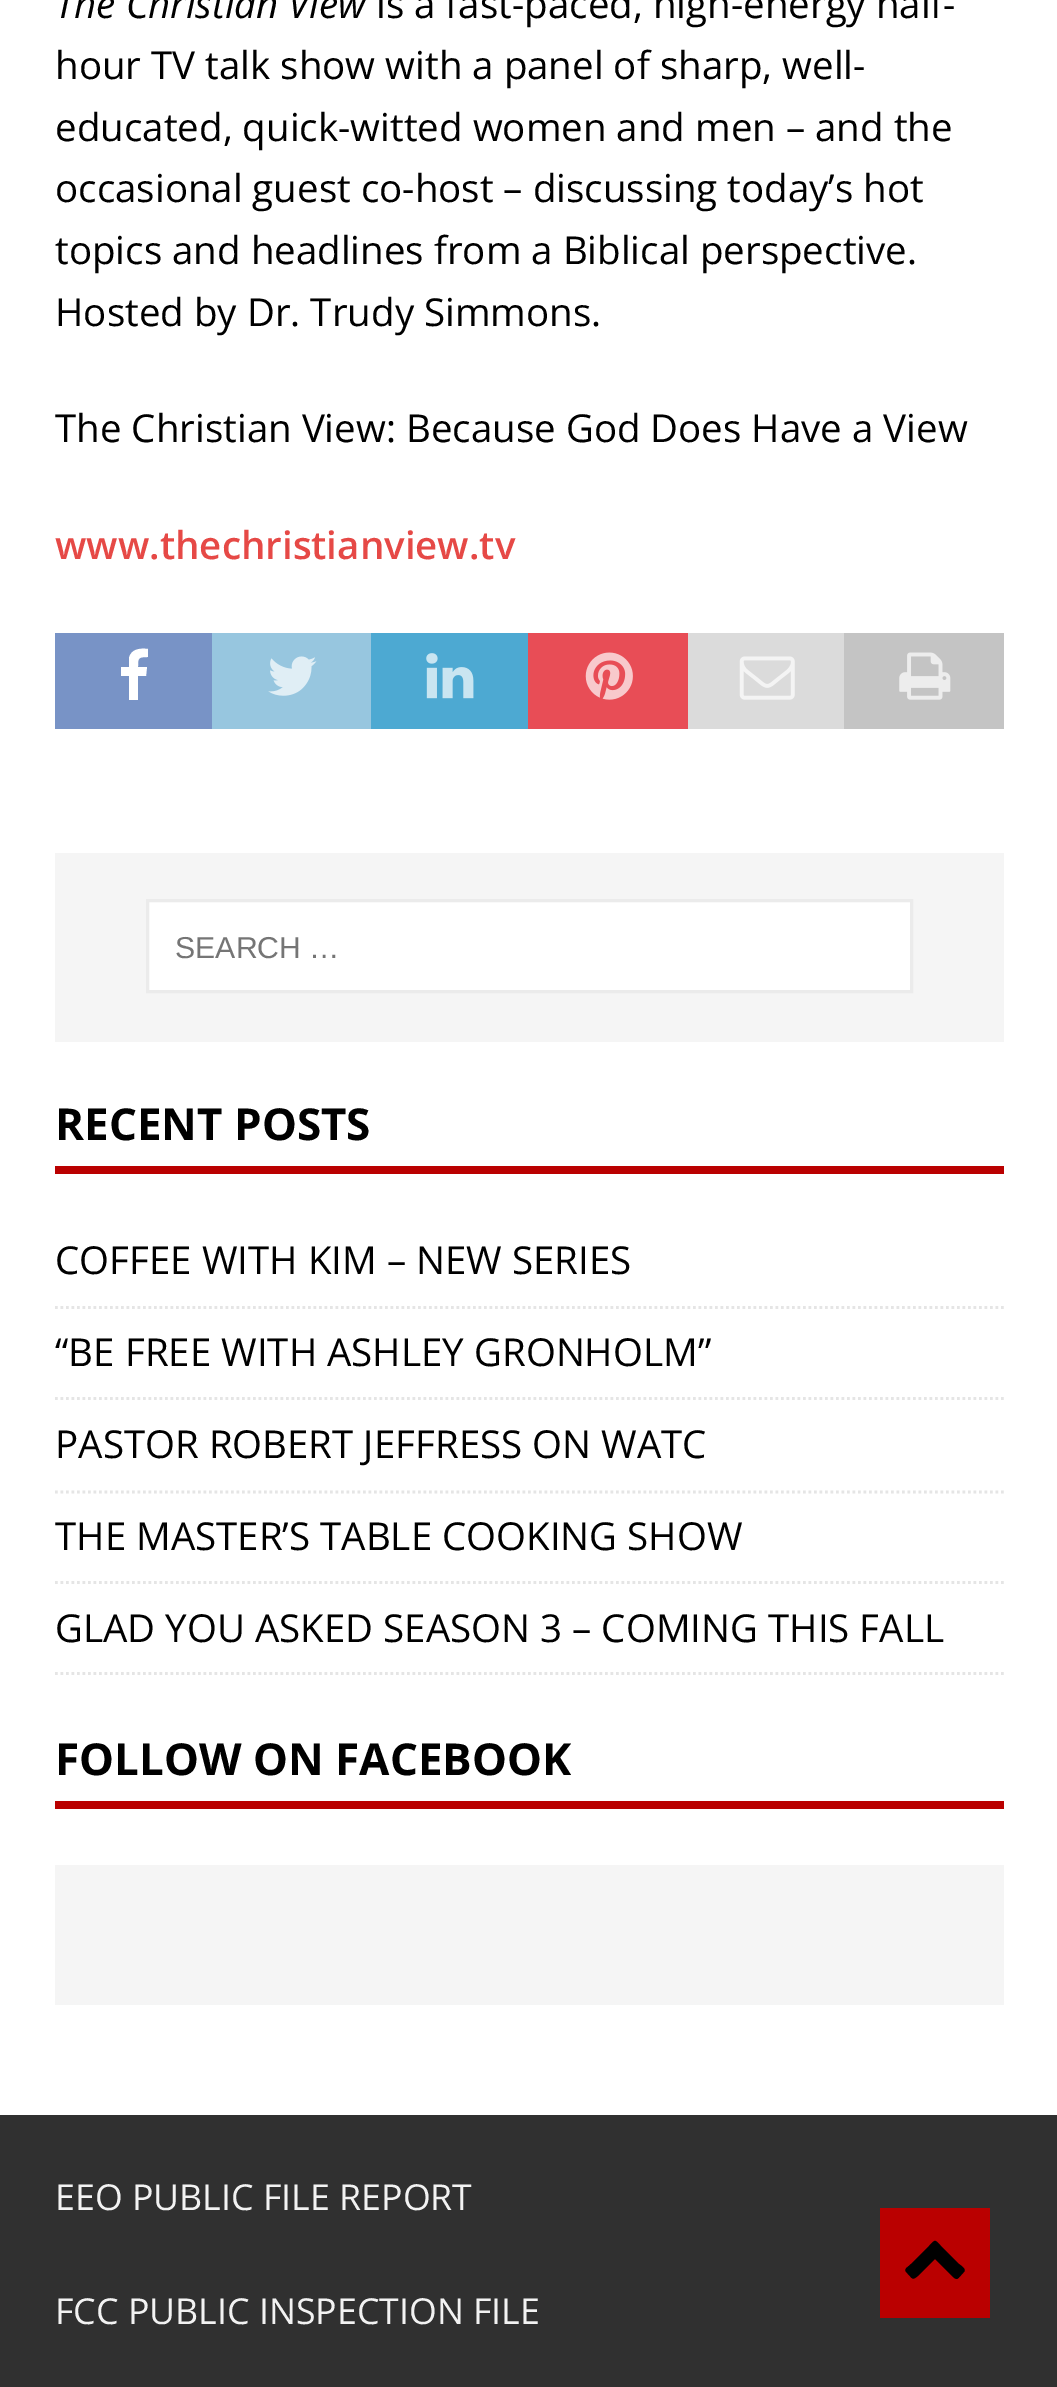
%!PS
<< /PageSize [1057 2387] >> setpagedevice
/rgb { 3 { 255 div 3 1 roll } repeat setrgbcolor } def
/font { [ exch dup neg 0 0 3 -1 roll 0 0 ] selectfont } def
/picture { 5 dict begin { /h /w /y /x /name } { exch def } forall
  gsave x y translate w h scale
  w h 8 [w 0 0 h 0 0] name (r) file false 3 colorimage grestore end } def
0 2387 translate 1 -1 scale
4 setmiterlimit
48 48 48 rgb
0 0 1057 2387 rectfill
255 255 255 rgb
0 0 1057 2115 rectfill
120 147 198 rgb
55 633 157 96 rectfill
255 255 255 rgb
148 649 moveto 148 657 lineto 138 657 138 658 138 667 curveto 147 667 lineto 146 676 lineto 138 676 lineto 138 700 lineto 129 700 lineto 129 676 lineto 121 676 lineto 121 667 lineto 129 667 lineto 129 658 lineto 131 649 140 648 148 649 curveto closepath fill
151 198 223 rgb
212 633 159 96 rectfill
(img/1.rgb) 268 656 49 40 picture
77 169 210 rgb
371 633 157 96 rectfill
(img/2.rgb) 426 653 48 46 picture
232 77 86 rgb
528 633 160 96 rectfill
(img/3.rgb) 585 652 48 48 picture
219 219 219 rgb
688 633 156 96 rectfill
(img/4.rgb) 739 656 56 44 picture
196 196 196 rgb
844 633 160 96 rectfill
(img/5.rgb) 899 652 52 48 picture
245 245 245 rgb
55 853 949 189 rectfill
255 255 255 rgb
147.5 900.5 moveto 911.5 900.5 lineto 911.5 991.5 lineto 147.5 991.5 lineto closepath gsave fill grestore
235 235 235 rgb
3 setlinewidth
stroke
186 0 0 rgb
55 1166 949 8 rectfill
229 229 229 rgb
2.8 setlinewidth
[2.75 2.75] 0 setdash
55 1307.5 moveto 1004 1307.5 lineto stroke
55 1398.5 moveto 1004 1398.5 lineto stroke
55 1492 moveto 1004 1492 lineto stroke
55 1582.5 moveto 1004 1582.5 lineto stroke
55 1673.5 moveto 1004 1673.5 lineto stroke
[
  [55 1801 949 8 186 0 0]
  [55 1865 949 140 245 245 245]
  [880 2208 110 110 186 0 0]
] { aload pop rgb rectfill } forall
0 0 0 rgb
964 2272 moveto 957 2279 958 2282 951 2275 curveto 935 2259 lineto 919 2275 lineto 912 2281 913 2279 907 2273 curveto 903 2269 907 2268 911 2264 curveto 929 2246 lineto 936 2239 934 2239 941 2246 curveto 959 2264 lineto 960 2265 967 2269 964 2272 curveto closepath fill
/OpenSans-Italic 38.5 font
55 18 moveto (The Christian View) show
/OpenSans-Regular 38.5 font
[
  [(is a fast-paced, high-energy half-) 376 18]
  [(hour TV talk show with a panel of sharp, well-) 55 79]
  [(educated, quick-witted women and men – and the) 55 141]
  [(occasional guest co-host – discussing today’s hot) 55 202]
  [(topics and headlines from a Biblical perspective.) 55 264]
  [(Hosted by Dr. Trudy Simmons.) 55 326]
  [(The Christian View: Because God Does Have a View) 55 442]
] { aload pop moveto show } forall
/OpenSans-SemiBold 38.5 font
230 73 70 rgb
55 559 moveto (www.thechristianview.tv) show
/LiberationSans-Regular 30.25 font
117 117 117 rgb
175 958 moveto (SEARCH …) show
/OpenSans-Bold 44 font
0 0 0 rgb
55 1140 moveto (RECENT POSTS) show
/OpenSans-Regular 38.5 font
[
  [(COFFEE WITH KIM – NEW SERIES) 55 1274]
  [(“BE FREE WITH ASHLEY GRONHOLM”) 55 1366]
  [(PASTOR ROBERT JEFFRESS ON WATC) 55 1458]
  [(THE MASTER’S TABLE COOKING SHOW) 55 1550]
  [(GLAD YOU ASKED SEASON 3 – COMING THIS FALL) 55 1642]
] { aload pop moveto show } forall
/OpenSans-Bold 44 font
55 1775 moveto (FOLLOW ON FACEBOOK) show
/OpenSans-Regular 35.75 font
242 242 242 rgb
55 2210 moveto (EEO PUBLIC FILE REPORT) show
55 2324 moveto (FCC PUBLIC INSPECTION FILE) show
showpage
